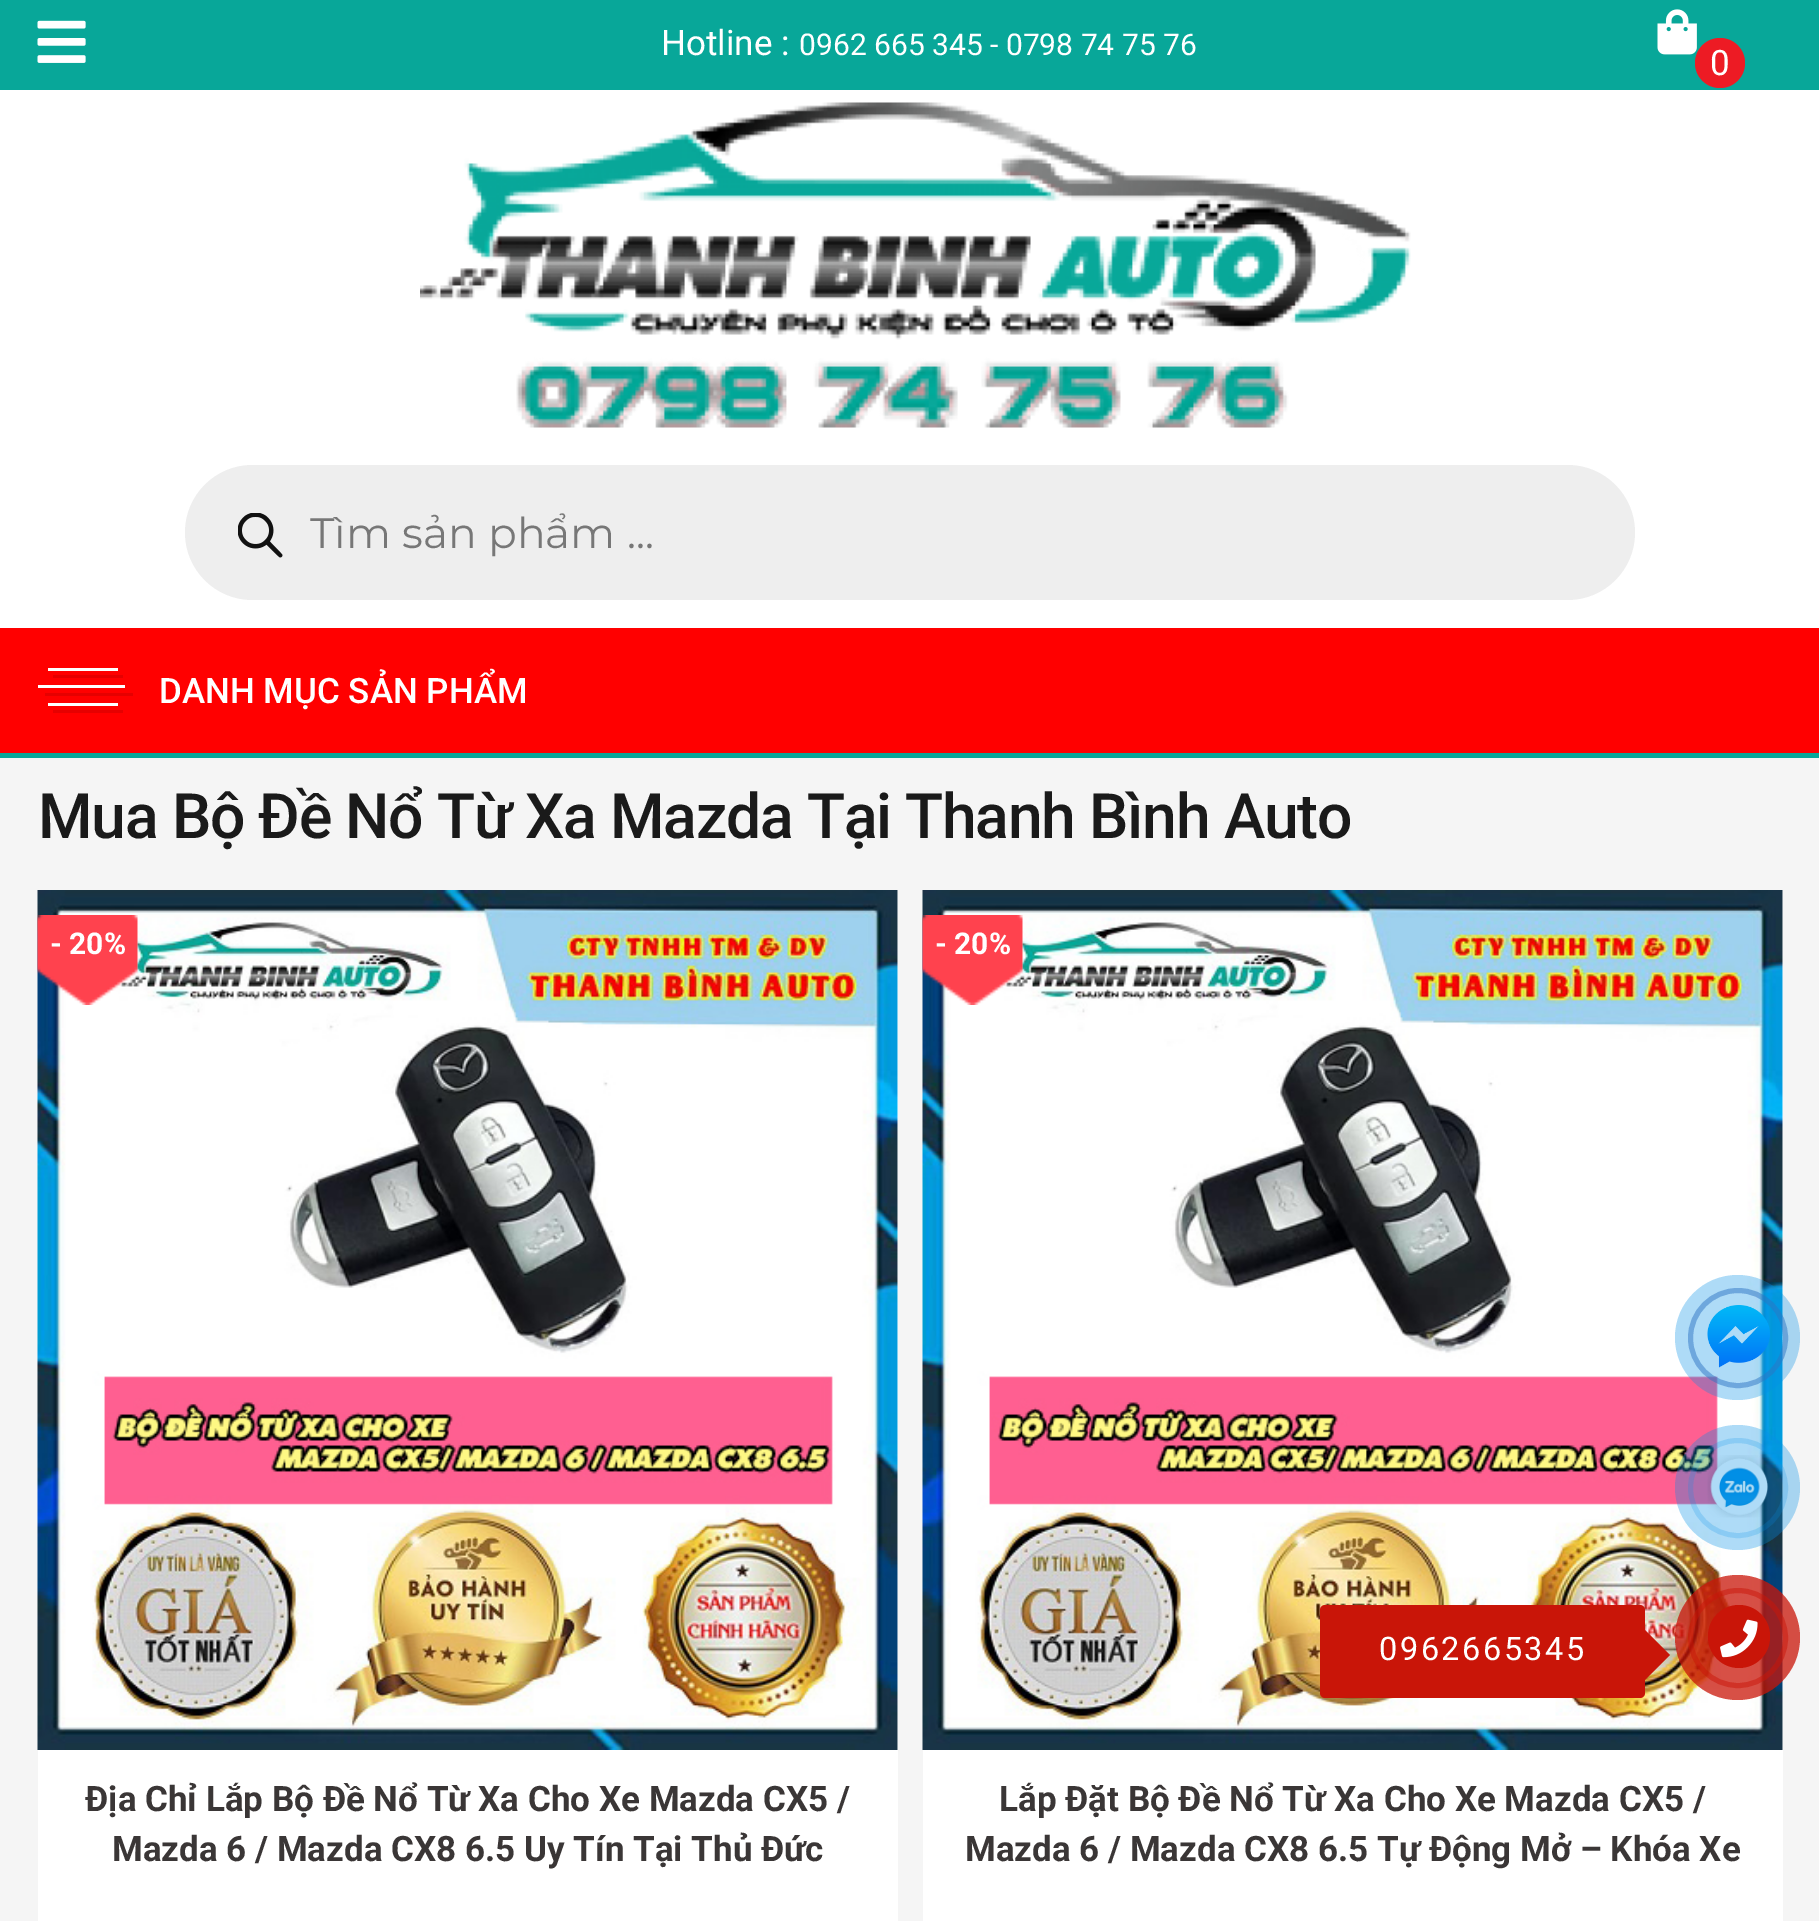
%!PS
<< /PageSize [1819 1921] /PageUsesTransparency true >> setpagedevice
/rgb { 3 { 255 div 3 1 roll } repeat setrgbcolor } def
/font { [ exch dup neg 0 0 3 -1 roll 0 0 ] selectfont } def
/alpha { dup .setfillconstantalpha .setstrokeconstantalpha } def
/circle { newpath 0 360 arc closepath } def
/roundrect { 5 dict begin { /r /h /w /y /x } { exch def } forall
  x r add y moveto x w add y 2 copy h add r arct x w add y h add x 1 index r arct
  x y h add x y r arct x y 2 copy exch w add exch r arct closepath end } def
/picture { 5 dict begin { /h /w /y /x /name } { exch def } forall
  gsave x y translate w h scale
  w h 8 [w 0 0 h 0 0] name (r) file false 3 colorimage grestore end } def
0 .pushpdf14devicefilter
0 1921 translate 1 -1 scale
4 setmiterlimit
245 245 245 rgb
0 0 1819 1921 rectfill
255 255 255 rgb
0 90 1819 538 rectfill
8 167 153 rgb
0 0 1819 90 rectfill
(img/1.rgb) 37 20 49 43 picture
(img/2.rgb) 1657 9 40 46 picture
237 27 36 rgb
1720 63 25 circle fill
(img/3.rgb) 420 102 991 326 picture
238 238 238 rgb
185 465 1450 135 67.5 roundrect fill
(img/4.rgb) 238 513 45 45 picture
[
  [0 753 1819 5 8 167 153]
  [0 628 1819 125 255 0 0]
  [53 675 70 3 230 0 0]
  [48 668 70 3 255 255 255]
  [45 693 88 3 230 0 0]
  [38 685 87 3 255 255 255]
  [53 710 70 3 230 0 0]
  [48 703 70 3 255 255 255]
  [38 890 860 1031 255 255 255]
] { aload pop rgb rectfill } forall
(img/5.rgb) 37 890 861 860 picture
(img/6.rgb) 37 915 101 90 picture
923 890 860 1031 rectfill
(img/7.rgb) 922 890 861 860 picture
(img/8.rgb) 922 915 101 90 picture
(img/9.rgb) 1707 1305 63 63 picture
0.5 alpha
66 103 178 rgb
5 setlinewidth
1738 1338 47.5 circle stroke
0.32 alpha
3 143 230 rgb
1737.5 1337.5 62.5 circle fill
1 alpha
(img/10.rgb) 1707 1455 63 63 picture
0.21 alpha
1738 1488 47.5 circle stroke
0.32 alpha
1737.5 1487.5 62.5 circle fill
0.5 alpha
201 21 8 rgb
1738 1638 47.5 circle stroke
0.75 alpha
1737.5 1637.5 62.5 circle fill
1 alpha
1320 1605 325 93 5 roundrect fill
1645 1680 moveto 1645 1630 lineto 1670 1655 lineto closepath fill
1708 1605 62 63 31 roundrect fill
(img/11.rgb) 1720 1619 38 39 picture
/Roboto-Regular 35 font
255 255 255 rgb
661 55 moveto (Hotline :) show
/Roboto-Regular 30 font
799 55 moveto (0962 665 345 - 0798 74 75 76) show
/Roboto-Regular 35 font
1710 75 moveto (0) show
/Montserrat-Regular 42.5 font
119 119 119 rgb
310 548 moveto (Tìm sản phẩm ...) show
/Roboto-Medium 35 font
255 255 255 rgb
159 703 moveto (DANH MỤC SẢN PHẨM) show
/Roboto-Medium 62.5 font
26 26 26 rgb
38 838 moveto -1.25 0 (Mua Bộ Đề Nổ Từ Xa Mazda Tại Thanh Bình Auto) ashow
/Roboto-Bold 30 font
255 255 255 rgb
50 954 moveto (- 20%) show
/Roboto-Bold 35 font
58 54 54 rgb
85 1811 moveto (Địa Chỉ Lắp Bộ Đề Nổ Từ Xa Cho Xe Mazda CX5 /) show
112 1861 moveto (Mazda 6 / Mazda CX8 6.5 Uy Tín Tại Thủ Đức) show
/Roboto-Bold 30 font
255 255 255 rgb
935 954 moveto (- 20%) show
/Roboto-Bold 35 font
58 54 54 rgb
999 1811 moveto (Lắp Đặt Bộ Đề Nổ Từ Xa Cho Xe Mazda CX5 /) show
965 1861 moveto (Mazda 6 / Mazda CX8 6.5 Tự Động Mở – Khóa Xe) show
/Roboto-Regular 32.5 font
255 255 255 rgb
1379 1660 moveto 2.5 0 (0962665345) ashow
.poppdf14devicefilter showpage
